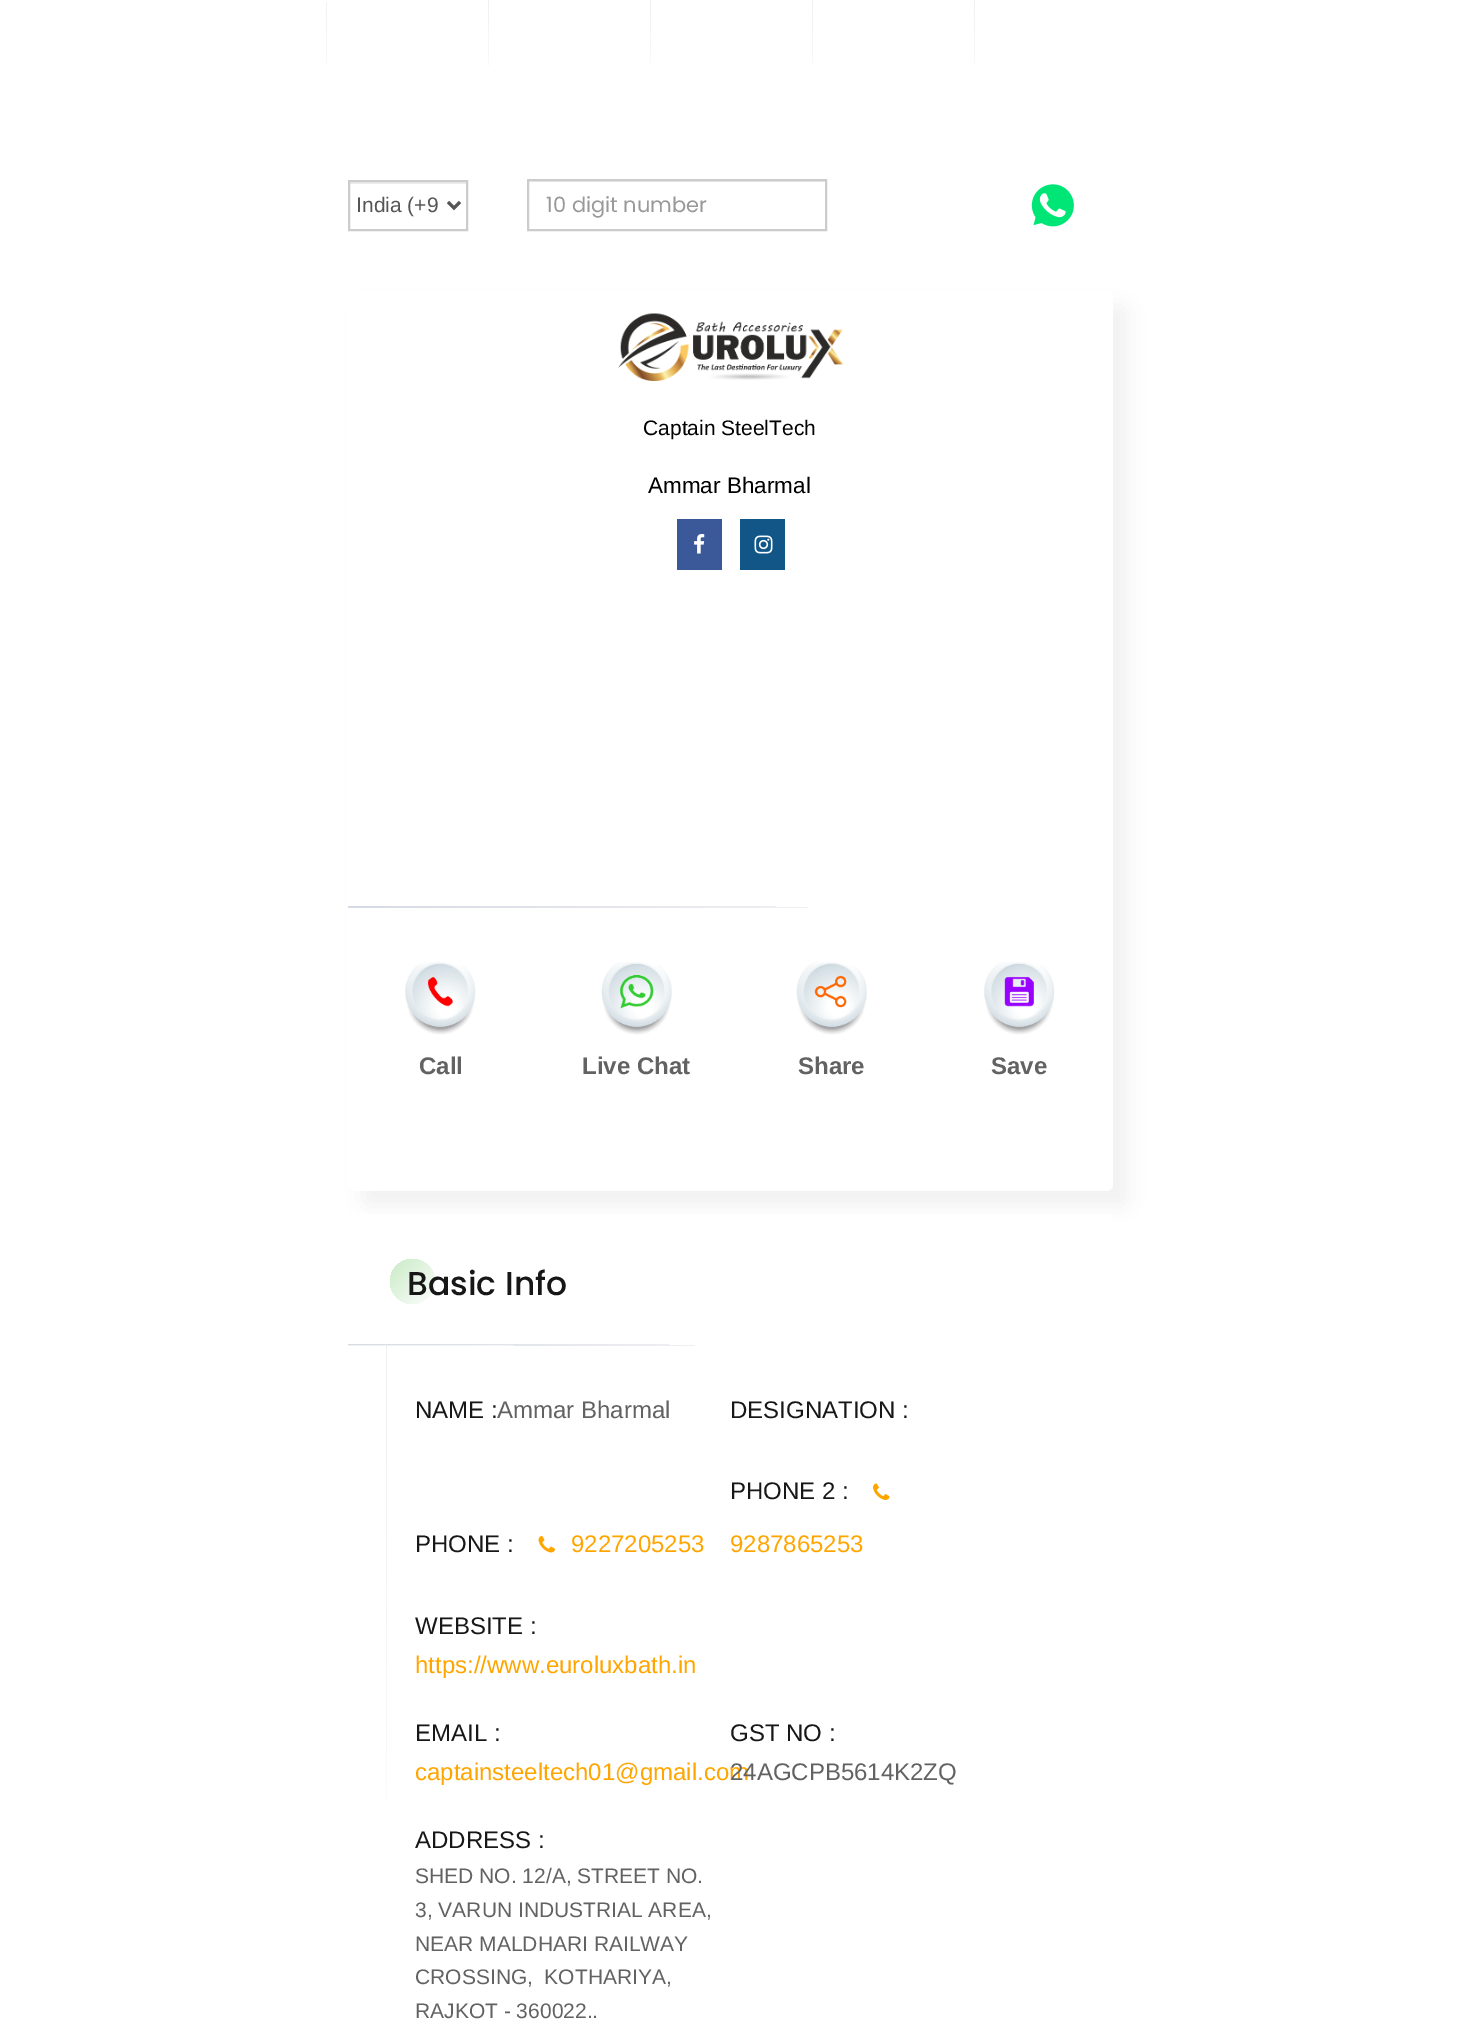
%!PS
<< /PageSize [1459 2027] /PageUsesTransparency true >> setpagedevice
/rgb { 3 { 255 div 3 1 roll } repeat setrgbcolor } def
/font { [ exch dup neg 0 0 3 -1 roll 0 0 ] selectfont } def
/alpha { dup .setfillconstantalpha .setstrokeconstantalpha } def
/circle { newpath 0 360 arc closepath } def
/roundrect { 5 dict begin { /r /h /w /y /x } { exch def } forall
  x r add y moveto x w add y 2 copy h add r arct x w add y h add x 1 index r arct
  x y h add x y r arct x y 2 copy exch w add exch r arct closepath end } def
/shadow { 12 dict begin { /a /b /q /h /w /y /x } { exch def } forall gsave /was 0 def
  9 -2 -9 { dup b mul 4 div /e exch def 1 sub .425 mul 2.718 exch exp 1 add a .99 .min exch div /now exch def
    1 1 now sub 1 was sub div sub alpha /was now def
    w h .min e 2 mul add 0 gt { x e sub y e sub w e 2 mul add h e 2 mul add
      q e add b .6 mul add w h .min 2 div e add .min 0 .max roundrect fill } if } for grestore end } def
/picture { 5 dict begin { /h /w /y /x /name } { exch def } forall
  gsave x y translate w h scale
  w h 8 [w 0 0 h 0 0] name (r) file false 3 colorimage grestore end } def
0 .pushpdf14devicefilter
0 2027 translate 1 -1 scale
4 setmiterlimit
255 255 255 rgb
0 0 1459 2027 rectfill
gsave
332 0 moveto 488 0 lineto 488 113 lineto 332 113 lineto 328.5 113 326 110.5 326 107 curveto 326 6 lineto 326 2.5 328.5 0 332 0 curveto closepath clip newpath
gsave 326 0 moveto 328 0 lineto 328 113 lineto 326 113 lineto closepath clip newpath 326 0 translate 1.1 159 scale
<< /ShadingType 3 /ColorSpace /DeviceRGB /Coords [0 0 0 0 0 1] /Extend [true true] /Function << /FunctionType 3 /Domain [0 1] /Functions [<< /FunctionType 2 /Domain [0 1] /C0 [0.839 0.855 0.886] /C1 [1 1 1] /N 1 >> << /FunctionType 2 /Domain [0 1] /C0 [1 1 1] /C1 [1 1 1] /N 1 >>] /Bounds [0.7] /Encode [0 1 0 1] >> >> shfill grestore
grestore
gsave 488 0 moveto 489 0 lineto 489 76 lineto 488 76 lineto closepath clip newpath 488 0 translate 1.1 159 scale
<< /ShadingType 3 /ColorSpace /DeviceRGB /Coords [0 0 0 0 0 1] /Extend [true true] /Function << /FunctionType 3 /Domain [0 1] /Functions [<< /FunctionType 2 /Domain [0 1] /C0 [0.839 0.855 0.886] /C1 [1 1 1] /N 1 >> << /FunctionType 2 /Domain [0 1] /C0 [1 1 1] /C1 [1 1 1] /N 1 >>] /Bounds [0.7] /Encode [0 1 0 1] >> >> shfill grestore
gsave 650 0 moveto 651 0 lineto 651 76 lineto 650 76 lineto closepath clip newpath 650 0 translate 1.1 159 scale
<< /ShadingType 3 /ColorSpace /DeviceRGB /Coords [0 0 0 0 0 1] /Extend [true true] /Function << /FunctionType 3 /Domain [0 1] /Functions [<< /FunctionType 2 /Domain [0 1] /C0 [0.839 0.855 0.886] /C1 [1 1 1] /N 1 >> << /FunctionType 2 /Domain [0 1] /C0 [1 1 1] /C1 [1 1 1] /N 1 >>] /Bounds [0.7] /Encode [0 1 0 1] >> >> shfill grestore
gsave 812 0 moveto 813 0 lineto 813 76 lineto 812 76 lineto closepath clip newpath 812 0 translate 1.1 159 scale
<< /ShadingType 3 /ColorSpace /DeviceRGB /Coords [0 0 0 0 0 1] /Extend [true true] /Function << /FunctionType 3 /Domain [0 1] /Functions [<< /FunctionType 2 /Domain [0 1] /C0 [0.839 0.855 0.886] /C1 [1 1 1] /N 1 >> << /FunctionType 2 /Domain [0 1] /C0 [1 1 1] /C1 [1 1 1] /N 1 >>] /Bounds [0.7] /Encode [0 1 0 1] >> >> shfill grestore
gsave 974 0 moveto 975 0 lineto 975 76 lineto 974 76 lineto closepath clip newpath 974 0 translate 1.1 159 scale
<< /ShadingType 3 /ColorSpace /DeviceRGB /Coords [0 0 0 0 0 1] /Extend [true true] /Function << /FunctionType 3 /Domain [0 1] /Functions [<< /FunctionType 2 /Domain [0 1] /C0 [0.839 0.855 0.886] /C1 [1 1 1] /N 1 >> << /FunctionType 2 /Domain [0 1] /C0 [1 1 1] /C1 [1 1 1] /N 1 >>] /Bounds [0.7] /Encode [0 1 0 1] >> >> shfill grestore
236 236 236 rgb
350 182 117 2 rectfill
204 204 204 rgb
2 setlinewidth
349 181 118 49 rectstroke
85 85 85 rgb
3 setlinewidth
448 202 moveto 454 208 lineto 460 202 lineto stroke
236 236 236 rgb
528 181 297 1 rectfill
204 204 204 rgb
2 setlinewidth
528 180 298 50 rectstroke
(img/1.rgb) 1031 184 43 43 picture
0 0 0 rgb
363 306 765 900 6 11 0.05 shadow
255 255 255 rgb
348 291 765 900 6 roundrect fill
(img/2.rgb) 618 313 225 68 picture
59 89 152 rgb
677 519 45 51 rectfill
(img/3.rgb) 694 534 11 20 picture
18 86 136 rgb
740 519 45 51 rectfill
(img/4.rgb) 754 535 19 19 picture
gsave 348 906 moveto 861 906 lineto 861 908 lineto 348 908 lineto closepath clip newpath 348 907 translate 1082 1.1 scale
<< /ShadingType 3 /ColorSpace /DeviceRGB /Coords [0 0 0 0 0 1] /Extend [true true] /Function << /FunctionType 3 /Domain [0 1] /Functions [<< /FunctionType 2 /Domain [0 1] /C0 [0.839 0.855 0.886] /C1 [1 1 1] /N 1 >> << /FunctionType 2 /Domain [0 1] /C0 [1 1 1] /C1 [1 1 1] /N 1 >>] /Bounds [0.7] /Encode [0 1 0 1] >> >> shfill grestore
(img/5.rgb) 405 962 71 73 picture
(img/6.rgb) 601 962 71 73 picture
(img/7.rgb) 796 962 71 73 picture
(img/8.rgb) 984 962 71 73 picture
255 255 255 rgb
348 1214 765 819 6 roundrect fill
gsave 412.5 1281.5 22.5 circle clip newpath
<< /ShadingType 2 /ColorSpace /DeviceRGB /Coords [390 1259 435 1304] /Extend [true true] /Function << /FunctionType 2 /Domain [0 1] /C0 [0.788 0.922 0.773] /C1 [0.996 0.996 0.996] /N 1 >> >> shfill grestore
gsave 348 1344 moveto 739 1344 lineto 739 1346 lineto 348 1346 lineto closepath clip newpath 318 1345 translate 887 1.1 scale
<< /ShadingType 3 /ColorSpace /DeviceRGB /Coords [0 0 0 0 0 1] /Extend [true true] /Function << /FunctionType 3 /Domain [0 1] /Functions [<< /FunctionType 2 /Domain [0 1] /C0 [0.839 0.855 0.886] /C1 [1 1 1] /N 1 >> << /FunctionType 2 /Domain [0 1] /C0 [1 1 1] /C1 [1 1 1] /N 1 >>] /Bounds [0.7] /Encode [0 1 0 1] >> >> shfill grestore
gsave 386 1346 moveto 387 1346 lineto 387 1855 lineto 386 1855 lineto closepath clip newpath 386 1346 translate 1.1 1071 scale
<< /ShadingType 3 /ColorSpace /DeviceRGB /Coords [0 0 0 0 0 1] /Extend [true true] /Function << /FunctionType 3 /Domain [0 1] /Functions [<< /FunctionType 2 /Domain [0 1] /C0 [0.839 0.855 0.886] /C1 [1 1 1] /N 1 >> << /FunctionType 2 /Domain [0 1] /C0 [1 1 1] /C1 [1 1 1] /N 1 >>] /Bounds [0.7] /Encode [0 1 0 1] >> >> shfill grestore
(img/9.rgb) 538 1536 17 17 picture
(img/10.rgb) 873 1483 17 17 picture
/LiberationSans-Regular 21 font
85 85 85 rgb
356 212 moveto (India \(+9) show
/Poppins-Regular 21 font
153 153 153 rgb
546 212 moveto (10 digit number) show
/LiberationSans-Regular 21 font
0 0 0 rgb
643 435 moveto (Captain SteelTech) show
/LiberationSans-Regular 22.5 font
648 493 moveto (Ammar Bharmal) show
/LiberationSans-Bold 24 font
98 98 98 rgb
[
  [(Call) 419 1074]
  [(Live Chat) 582 1074]
  [(Share) 798 1074]
  [(Save) 991 1074]
] { aload pop moveto show } forall
/Poppins-Medium 33 font
23 23 23 rgb
407 1295 moveto (Basic Info) show
/LiberationSans-Regular 24 font
415 1418 moveto (NAME :) show
98 98 98 rgb
497 1418 moveto (Ammar Bharmal) show
23 23 23 rgb
730 1418 moveto (DESIGNATION :) show
415 1552 moveto (PHONE :) show
255 165 0 rgb
571 1552 moveto (9227205253) show
23 23 23 rgb
730 1499 moveto (PHONE 2 :) show
255 165 0 rgb
730 1552 moveto (9287865253) show
23 23 23 rgb
415 1634 moveto (WEBSITE :) show
255 165 0 rgb
415 1673 moveto (https://www.euroluxbath.in) show
23 23 23 rgb
415 1741 moveto (EMAIL :) show
255 165 0 rgb
415 1780 moveto (captainsteeltech01@gmail.com) show
23 23 23 rgb
730 1741 moveto (GST NO :) show
98 98 98 rgb
730 1780 moveto (24AGCPB5614K2ZQ) show
23 23 23 rgb
415 1848 moveto (ADDRESS :) show
/LiberationSans-Regular 21 font
98 98 98 rgb
[
  [(SHED NO. 12/A, STREET NO.) 415 1883]
  [(3, VARUN INDUSTRIAL AREA,) 415 1917]
  [(NEAR MALDHARI RAILWAY) 415 1951]
  [(CROSSING,  KOTHARIYA,) 415 1984]
  [(RAJKOT - 360022..) 415 2018]
] { aload pop moveto show } forall
.poppdf14devicefilter showpage
